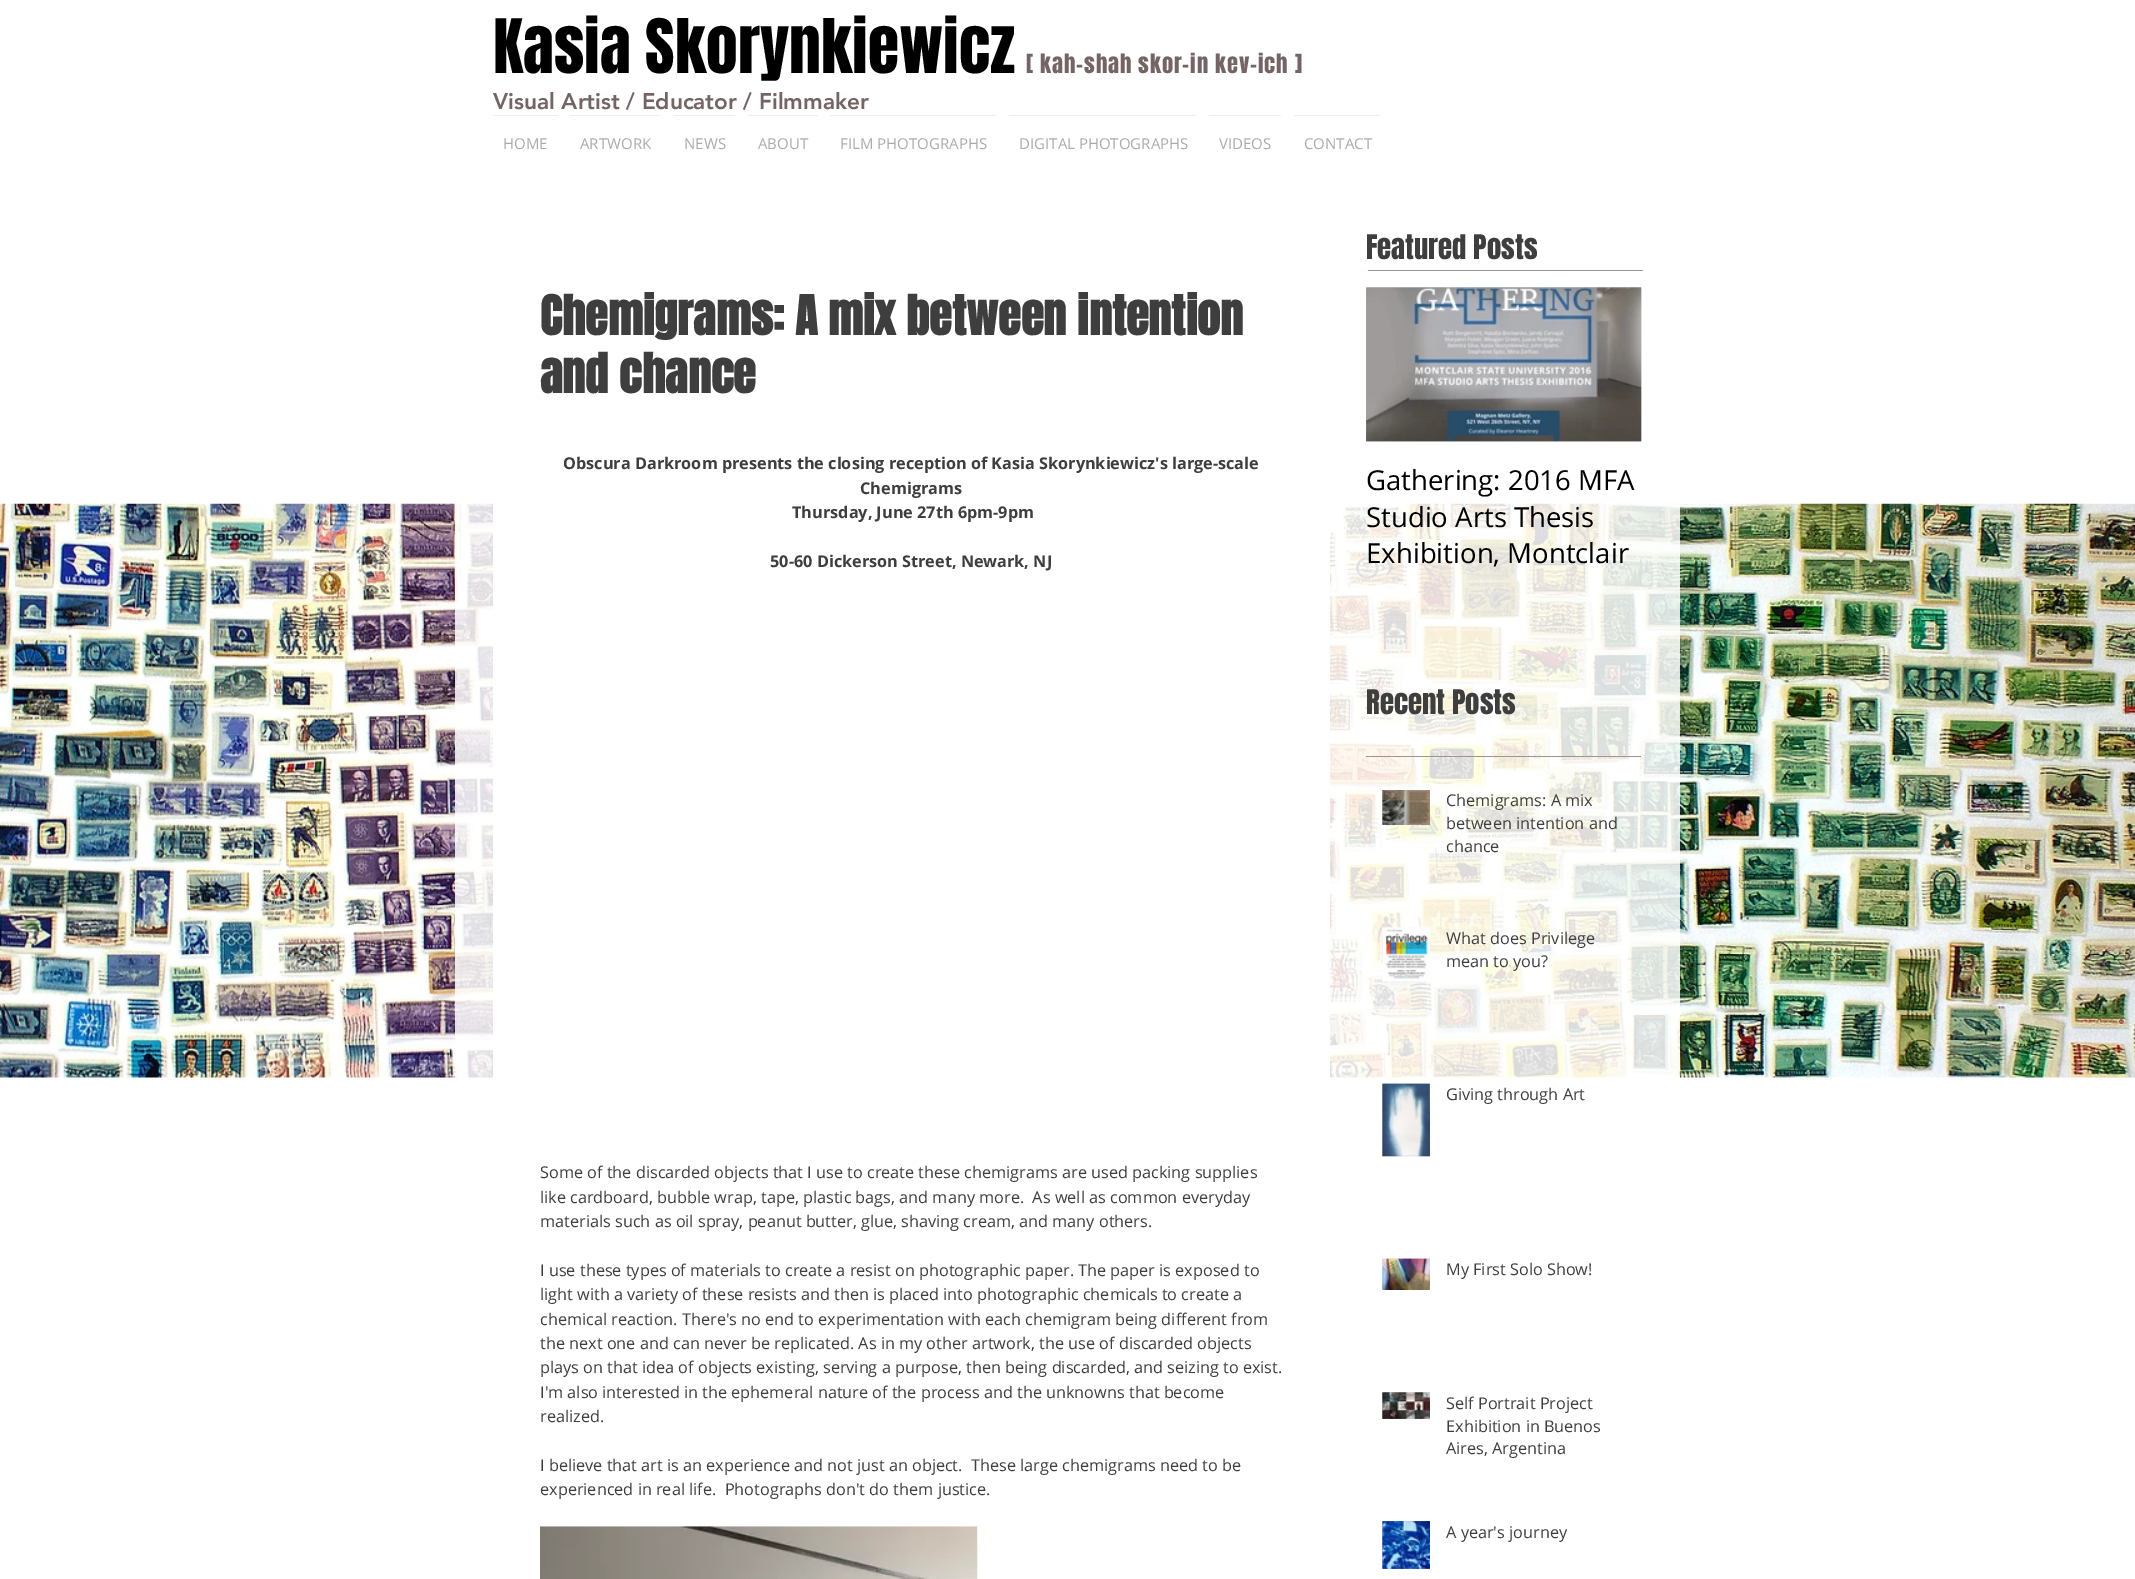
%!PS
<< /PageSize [2135 1579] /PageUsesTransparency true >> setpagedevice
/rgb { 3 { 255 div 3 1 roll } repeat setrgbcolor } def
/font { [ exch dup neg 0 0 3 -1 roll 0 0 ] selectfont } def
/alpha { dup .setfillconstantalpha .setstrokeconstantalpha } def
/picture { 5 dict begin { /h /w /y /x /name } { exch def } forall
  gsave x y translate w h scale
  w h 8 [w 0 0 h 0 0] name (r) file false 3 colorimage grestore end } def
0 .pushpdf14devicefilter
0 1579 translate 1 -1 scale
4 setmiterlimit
255 255 255 rgb
0 0 2135 1579 rectfill
[
  [493 115 65 1 239 239 239]
  [570 115 91 1 239 239 239]
  [674 115 61 1 239 239 239]
  [748 115 70 1 239 239 239]
  [830 115 166 1 239 239 239]
  [1009 115 187 1 239 239 239]
  [1209 115 72 1 239 239 239]
  [1294 115 86 1 239 239 239]
  [1368 270 275 1 163 146 146]
] { aload pop rgb rectfill } forall
(img/16.rgb) 0 503 2135 575 picture
0.85 alpha
255 255 255 rgb
455 503 1225 575 rectfill
1 alpha
493 503 837 575 rectfill
(img/1.rgb) 540 1526 438 53 picture
(img/2.rgb) 1366 287 276 155 picture
(img/3.rgb) 1366 287 276 155 picture
163 146 146 rgb
1366 756 275 1 rectfill
(img/4.rgb) 1382 790 1 35 picture
(img/5.rgb) 1382 790 48 35 picture
(img/6.rgb) 1382 927 48 55 picture
(img/7.rgb) 1382 927 48 55 picture
(img/8.rgb) 1382 1083 48 74 picture
(img/9.rgb) 1382 1083 48 74 picture
(img/10.rgb) 1382 1258 48 32 picture
(img/11.rgb) 1382 1258 48 32 picture
(img/12.rgb) 1382 1392 48 27 picture
(img/13.rgb) 1382 1392 48 27 picture
(img/14.rgb) 1382 1521 48 48 picture
(img/15.rgb) 1382 1521 48 48 picture
/Anton-Regular 63.75 font
0 0 0 rgb
493 73 moveto (Kasia Skorynkiewicz) show
/Anton-Regular 22.5 font
117 100 100 rgb
1026 73 moveto 0.9 0 ([ kah-shah skor-in kev-ich ]) ashow
/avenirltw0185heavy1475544-Black 22.5 font
493 109 moveto (Visual Artist / Educator / Filmmaker) show
/OpenSans-Regular 15 font
171 171 171 rgb
[
  [(HOME) 503 149]
  [(ARTWORK) 580 149]
  [(NEWS) 684 149]
  [(ABOUT) 758 149]
  [(FILM PHOTOGRAPHS) 840 149]
  [(DIGITAL PHOTOGRAPHS) 1019 149]
  [(VIDEOS) 1219 149]
  [(CONTACT) 1304 149]
] { aload pop moveto show } forall
/Anton-Regular 28.75 font
62 62 62 rgb
1366 259 moveto (Featured Posts) show
/Anton-Bold 46.25 font
540 335 moveto (Chemigrams: A mix between intention) show
540 393 moveto (and chance) show
/OpenSans-Bold 16.25 font
[
  [(Obscura Darkroom presents the closing reception of Kasia Skorynkiewicz's large-scale) 563 469]
  [(Chemigrams) 860 494]
  [(Thursday, June 27th 6pm-9pm) 792 518]
  [(50-60 Dickerson Street, Newark, NJ) 770 567]
] { aload pop moveto show } forall
/OpenSans-Regular 16.25 font
[
  [(Some of the discarded objects that I use to create these chemigrams are used packing supplies) 540 1178]
  [(like cardboard, bubble wrap, tape, plastic bags, and many more.  As well as common everyday) 540 1203]
  [(materials such as oil spray, peanut butter, glue, shaving cream, and many others.) 540 1227]
  [(I use these types of materials to create a resist on photographic paper. The paper is exposed to) 540 1276]
  [(light with a variety of these resists and then is placed into photographic chemicals to create a) 540 1300]
  [(chemical reaction. There's no end to experimentation with each chemigram being different from) 540 1325]
  [(the next one and can never be replicated. As in my other artwork, the use of discarded objects) 540 1349]
  [(plays on that idea of objects existing, serving a purpose, then being discarded, and seizing to exist.) 540 1373]
  [(I'm also interested in the ephemeral nature of the process and the unknowns that become) 540 1398]
  [(realized.) 540 1422]
  [(I believe that art is an experience and not just an object.  These large chemigrams need to be) 540 1471]
  [(experienced in real life.  Photographs don't do them justice.) 540 1495]
] { aload pop moveto show } forall
/OpenSans-Regular 27.5 font
0 0 0 rgb
[
  [(Gathering: 2016 MFA) 1366 490]
  [(Studio Arts Thesis) 1366 527]
  [(Exhibition, Montclair) 1366 563]
] { aload pop moveto show } forall
/Anton-Regular 28.75 font
62 62 62 rgb
1366 714 moveto (Recent Posts) show
/OpenSans-Regular 16.25 font
[
  [(Chemigrams: A mix) 1446 806]
  [(between intention and) 1446 829]
  [(chance) 1446 852]
  [(What does Privilege) 1446 944]
  [(mean to you?) 1446 967]
  [(Giving through Art) 1446 1100]
  [(My First Solo Show!) 1446 1275]
  [(Self Portrait Project) 1446 1409]
  [(Exhibition in Buenos) 1446 1432]
  [(Aires, Argentina) 1446 1454]
  [(A year's journey) 1446 1538]
] { aload pop moveto show } forall
.poppdf14devicefilter showpage
